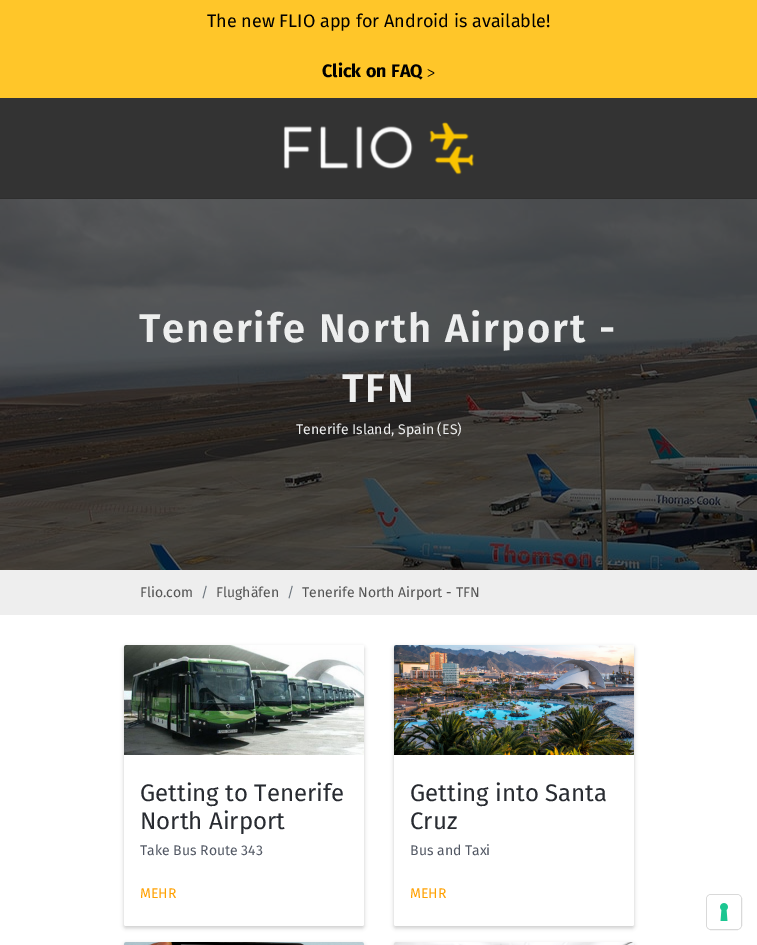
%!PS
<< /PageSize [757 945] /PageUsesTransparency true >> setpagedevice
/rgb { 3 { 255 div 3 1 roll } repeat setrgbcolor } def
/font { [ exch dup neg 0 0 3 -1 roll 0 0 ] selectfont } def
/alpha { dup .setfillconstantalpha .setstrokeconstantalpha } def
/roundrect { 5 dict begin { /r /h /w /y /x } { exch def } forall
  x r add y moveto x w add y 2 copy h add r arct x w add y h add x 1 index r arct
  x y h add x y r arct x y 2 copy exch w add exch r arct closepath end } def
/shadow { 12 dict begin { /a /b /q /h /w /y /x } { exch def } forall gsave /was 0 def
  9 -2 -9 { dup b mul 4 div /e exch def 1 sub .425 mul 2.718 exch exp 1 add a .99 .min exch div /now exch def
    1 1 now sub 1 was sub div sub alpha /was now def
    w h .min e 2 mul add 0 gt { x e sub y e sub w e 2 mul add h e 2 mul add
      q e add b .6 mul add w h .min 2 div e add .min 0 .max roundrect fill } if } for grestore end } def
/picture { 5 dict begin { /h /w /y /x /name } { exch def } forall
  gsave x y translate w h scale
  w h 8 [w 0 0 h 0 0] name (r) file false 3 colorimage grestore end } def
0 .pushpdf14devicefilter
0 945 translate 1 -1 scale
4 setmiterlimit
255 255 255 rgb
0 0 757 945 rectfill
[
  [0 0 757 98 255 198 41]
  [0 98 757 100 51 51 51]
  [0 198 757 1 46 46 46]
] { aload pop rgb rectfill } forall
(img/1.rgb) 283 122 191 53 picture
(img/2.rgb) 0 199 757 371 picture
238 238 238 rgb
0 570 757 45 rectfill
0 0 0 rgb
124 647 240 281 2 2 0.2 shadow
255 255 255 rgb
124 645 240 281 2 roundrect fill
(img/3.rgb) 124 645 240 110 picture
0 0 0 rgb
394 647 240 281 2 2 0.2 shadow
255 255 255 rgb
394 645 240 281 2 roundrect fill
(img/4.rgb) 394 645 240 110 picture
0 0 0 rgb
124 944 240 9 2 2 0.2 shadow
(img/5.rgb) 124 942 240 3 picture
394 944 240 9 2 2 0.2 shadow
(img/6.rgb) 394 942 240 3 picture
217 217 217 rgb
706.5 894.5 35 35 4.5 roundrect stroke
255 255 255 rgb
707 895 34 34 4 roundrect fill
(img/7.rgb) 720 903 8 18 picture
/FiraSans-Regular 18 font
0 0 0 rgb
207 27 moveto (The new FLIO app for Android is available!) show
/FiraSans-Bold 18 font
322 77 moveto (Click on FAQ) show
/DejaVuSans-Regular 11 font
427 77 moveto (ᐳ) show
/FiraSans-SemiBold 40 font
237 238 238 rgb
139 342 moveto 2 0 (Tenerife North Airport -) ashow
342 402 moveto 2 0 (TFN) ashow
/FiraSans-Regular 14 font
296 434 moveto (Tenerife Island, Spain \(ES\)) show
85 85 85 rgb
140 597 moveto (Flio.com) show
108 117 125 rgb
201 597 moveto (/) show
85 85 85 rgb
216 597 moveto (Flughäfen) show
108 117 125 rgb
287 597 moveto (/) show
85 85 85 rgb
302 597 moveto (Tenerife North Airport - TFN) show
/FiraSans-Regular 24 font
40 43 49 rgb
140 801 moveto (Getting to Tenerife) show
140 829 moveto (North Airport) show
/FiraSans-Regular 14 font
82 88 100 rgb
140 855 moveto (Take Bus Route 343) show
255 160 0 rgb
140 898 moveto (MEHR) show
/FiraSans-Regular 24 font
40 43 49 rgb
410 801 moveto (Getting into Santa) show
410 829 moveto (Cruz) show
/FiraSans-Regular 14 font
82 88 100 rgb
410 855 moveto (Bus and Taxi) show
255 160 0 rgb
410 898 moveto (MEHR) show
.poppdf14devicefilter showpage
